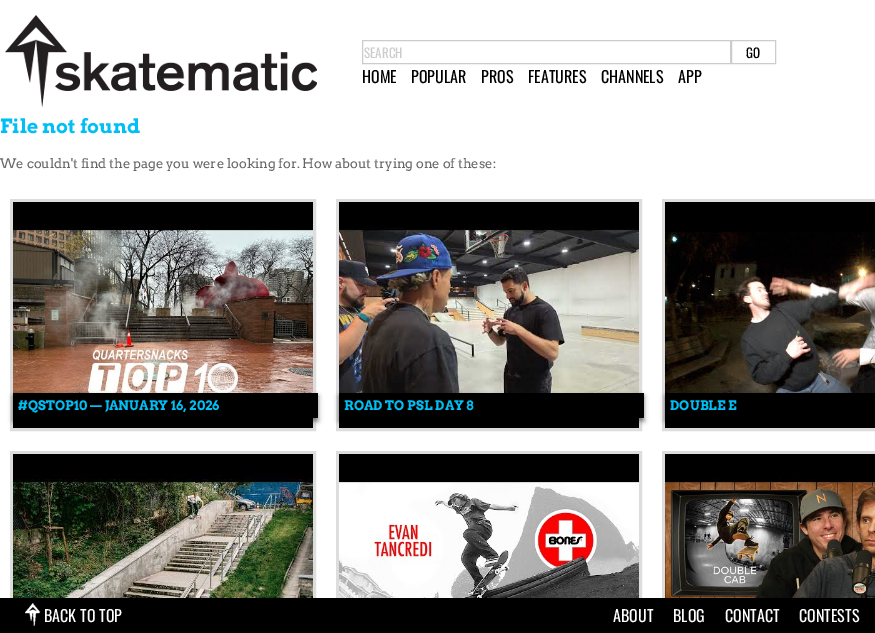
%!PS
<< /PageSize [875 633] /PageUsesTransparency true >> setpagedevice
/rgb { 3 { 255 div 3 1 roll } repeat setrgbcolor } def
/font { [ exch dup neg 0 0 3 -1 roll 0 0 ] selectfont } def
/alpha { dup .setfillconstantalpha .setstrokeconstantalpha } def
/roundrect { 5 dict begin { /r /h /w /y /x } { exch def } forall
  x r add y moveto x w add y 2 copy h add r arct x w add y h add x 1 index r arct
  x y h add x y r arct x y 2 copy exch w add exch r arct closepath end } def
/shadow { 12 dict begin { /a /b /q /h /w /y /x } { exch def } forall gsave /was 0 def
  9 -2 -9 { dup b mul 4 div /e exch def 1 sub .425 mul 2.718 exch exp 1 add a .99 .min exch div /now exch def
    1 1 now sub 1 was sub div sub alpha /was now def
    w h .min e 2 mul add 0 gt { x e sub y e sub w e 2 mul add h e 2 mul add
      q e add b .6 mul add w h .min 2 div e add .min 0 .max roundrect fill } if } for grestore end } def
/picture { 5 dict begin { /h /w /y /x /name } { exch def } forall
  gsave x y translate w h scale
  w h 8 [w 0 0 h 0 0] name (r) file false 3 colorimage grestore end } def
0 .pushpdf14devicefilter
0 633 translate 1 -1 scale
4 setmiterlimit
255 255 255 rgb
0 0 875 633 rectfill
(img/1.rgb) 5 15 312 92 picture
204 204 204 rgb
362.5 40.5 368 23 rectstroke
731.5 40.5 44 23 rectstroke
221 221 221 rgb
3 setlinewidth
11.5 200.5 303 229 rectstroke
0 0 0 rgb
13 202 300 226 rectfill
(img/2.rgb) 13 227 300 166 picture
13 396 305 25 0 2.5 0.5 shadow
313 393 5 25 rectfill
221 221 221 rgb
337.5 200.5 303 229 rectstroke
0 0 0 rgb
339 202 300 226 rectfill
(img/3.rgb) 339 223 300 170 picture
339 396 305 25 0 2.5 0.5 shadow
639 393 5 25 rectfill
221 221 221 rgb
663.5 200.5 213 229 rectstroke
0 0 0 rgb
665 202 210 226 rectfill
(img/4.rgb) 665 232 210 161 picture
665 396 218 25 0 2.5 0.5 shadow
221 221 221 rgb
11.5 452.5 303 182 rectstroke
0 0 0 rgb
13 454 300 20 rectfill
(img/5.rgb) 13 474 300 124 picture
221 221 221 rgb
337.5 452.5 303 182 rectstroke
0 0 0 rgb
339 454 300 28 rectfill
(img/6.rgb) 339 482 300 116 picture
221 221 221 rgb
663.5 452.5 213 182 rectstroke
0 0 0 rgb
665 454 210 25 rectfill
(img/7.rgb) 665 479 210 119 picture
0 598 875 35 rectfill
(img/8.rgb) 25 603 16 23 picture
/Oswald-Regular 13 font
204 204 204 rgb
364 58 moveto (SEARCH) show
0 0 0 rgb
746 58 moveto (GO) show
/Oswald-Regular 16 font
[
  [(HOME) 362 83]
  [(POPULAR) 411 83]
  [(PROS) 481 83]
  [(FEATURES) 528 83]
  [(CHANNELS) 601 83]
  [(APP) 678 83]
] { aload pop moveto show } forall
/Arvo-Bold 19.5 font
0 191 244 rgb
0 133 moveto (File not found) show
/Arvo-Regular 13 font
102 102 102 rgb
0 168 moveto (We couldn't find the page you were looking for. How about trying one of these:) show
/Arvo-Bold 13 font
0 191 244 rgb
[
  [(#QSTOP10 — JANUARY 16, 2026) 18 410]
  [(ROAD TO PSL DAY 8) 344 410]
  [(DOUBLE E) 670 410]
] { aload pop moveto show } forall
/Oswald-Regular 16 font
255 255 255 rgb
[
  [(BACK TO TOP) 44 622]
  [(ABOUT) 613 622]
  [(BLOG) 673 622]
  [(CONTACT) 725 622]
  [(CONTESTS) 799 622]
] { aload pop moveto show } forall
.poppdf14devicefilter showpage
